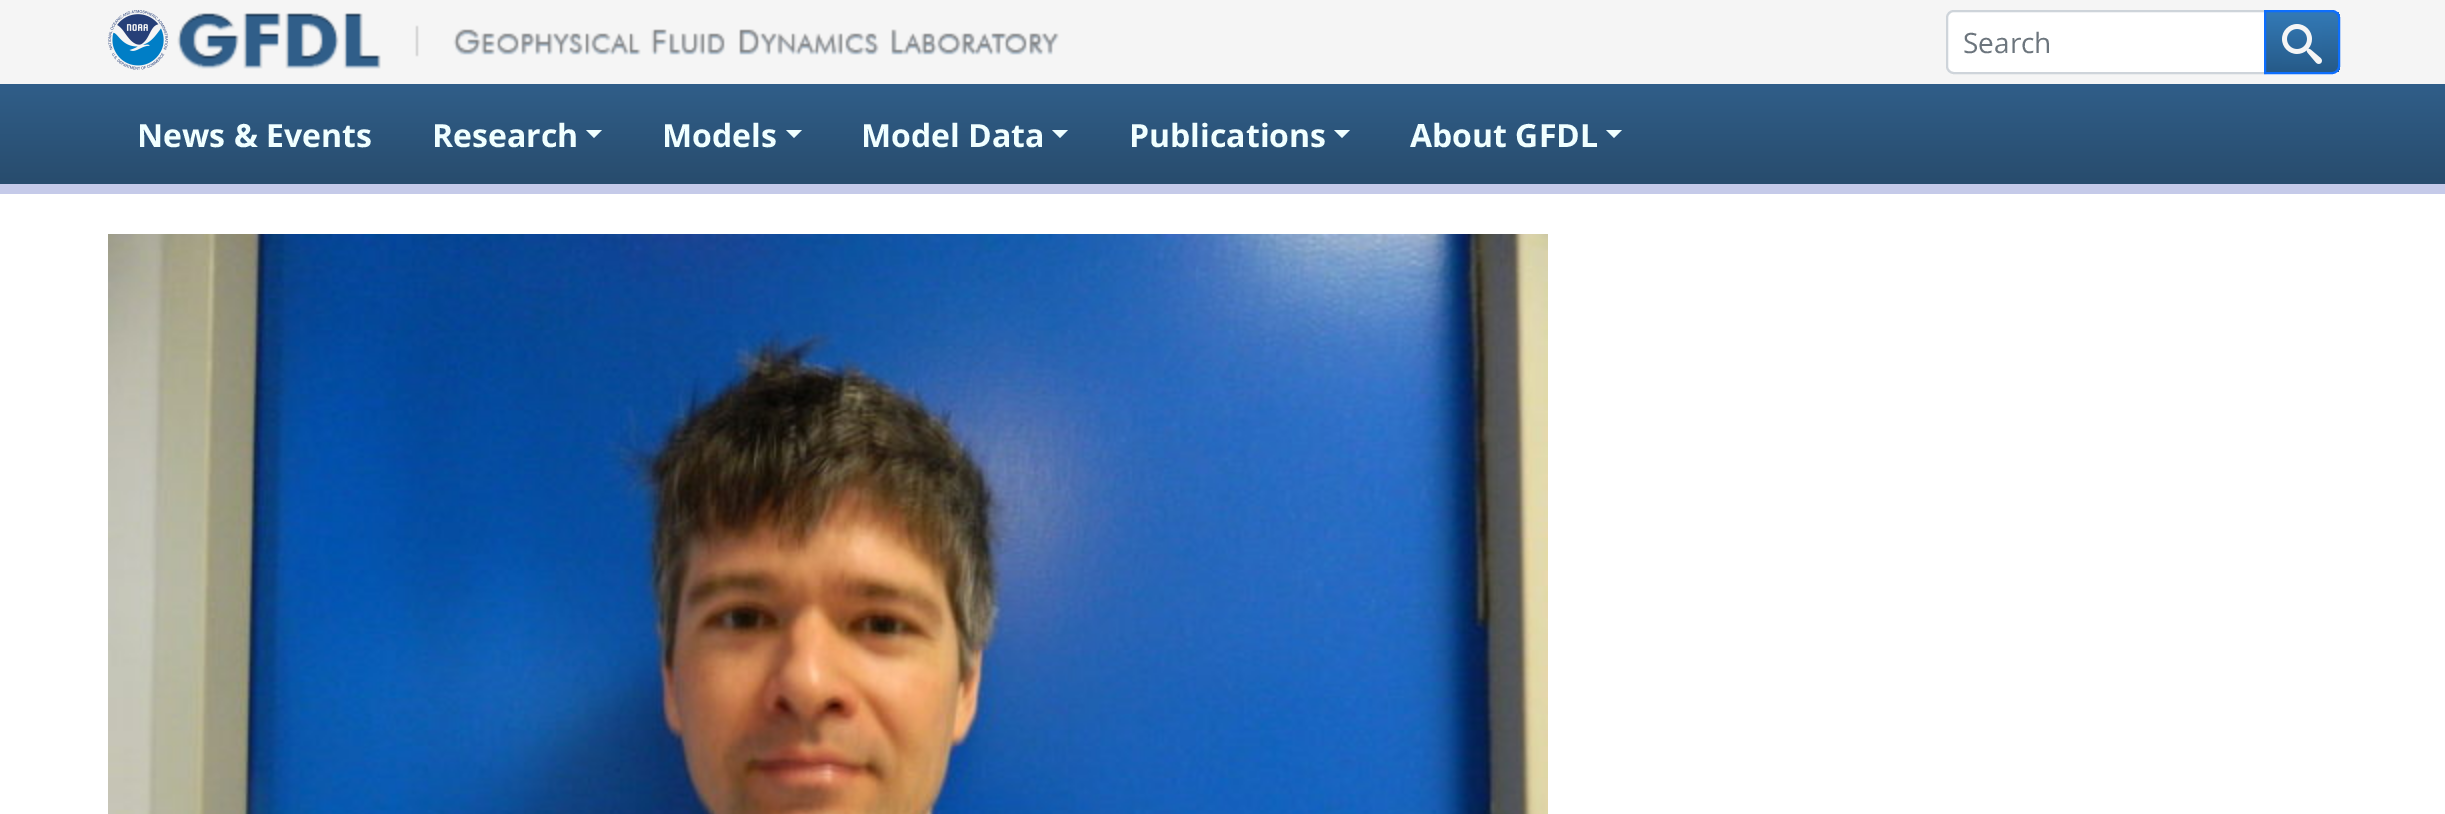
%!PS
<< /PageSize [2445 814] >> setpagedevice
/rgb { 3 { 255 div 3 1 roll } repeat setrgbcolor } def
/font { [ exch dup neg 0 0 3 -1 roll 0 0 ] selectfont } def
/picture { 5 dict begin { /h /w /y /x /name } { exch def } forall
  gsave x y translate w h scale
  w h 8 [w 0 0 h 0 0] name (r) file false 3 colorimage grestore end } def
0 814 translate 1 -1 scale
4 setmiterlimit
255 255 255 rgb
0 0 2445 814 rectfill
245 245 245 rgb
0 0 2445 84 rectfill
(img/1.rgb) 108 10 60 60 picture
(img/2.rgb) 177 13 204 56 picture
(img/3.rgb) 415 25 644 32 picture
255 255 255 rgb
1954 11 moveto 2265 11 lineto 2265 73 lineto 1954 73 lineto 1950 73 1947 70 1947 66 curveto 1947 18 lineto 1947 14 1950 11 1954 11 curveto closepath gsave fill grestore
206 212 218 rgb
2 setlinewidth
stroke
gsave
2264 10 moveto 2332 10 lineto 2336.5 10 2340 13.5 2340 18 curveto 2340 66 lineto 2340 70.5 2336.5 74 2332 74 curveto 2264 74 lineto closepath clip newpath
gsave 2266 12 moveto 2340 12 lineto 2340 72 lineto 2266 72 lineto closepath clip newpath
<< /ShadingType 2 /ColorSpace /DeviceRGB /Coords [2302 12 2302 72] /Extend [true true] /Function << /FunctionType 2 /Domain [0 1] /C0 [0.2 0.478 0.718] /C1 [0.149 0.353 0.533] /N 1 >> >> shfill grestore
grestore
13 110 253 rgb
2265 11 moveto 2332 11 lineto 2336 11 2339 14 2339 18 curveto 2339 66 lineto 2339 70 2336 73 2332 73 curveto 2265 73 lineto closepath stroke
(img/4.rgb) 2282 24 40 40 picture
gsave 0 84 moveto 2445 84 lineto 2445 184 lineto 0 184 lineto closepath clip newpath
<< /ShadingType 2 /ColorSpace /DeviceRGB /Coords [1223 84 1223 184] /Extend [true true] /Function << /FunctionType 2 /Domain [0 1] /C0 [0.188 0.369 0.537] /C1 [0.157 0.298 0.427] /N 1 >> >> shfill grestore
197 202 233 rgb
0 184 2445 10 rectfill
240 255 255 rgb
586 130 moveto 602 130 lineto 594 138 lineto closepath fill
786 130 moveto 802 130 lineto 794 138 lineto closepath fill
1052 130 moveto 1068 130 lineto 1060 138 lineto closepath fill
1334 130 moveto 1350 130 lineto 1342 138 lineto closepath fill
1606 130 moveto 1622 130 lineto 1614 138 lineto closepath fill
(img/5.rgb) 108 234 1440 580 picture
/OpenSans-Regular 28 font
108 117 125 rgb
1963 53 moveto (Search) show
/OpenSans-Bold 32 font
240 255 255 rgb
[
  [(News & Events) 137 147]
  [(Research) 432 147]
  [(Models) 662 147]
  [(Model Data) 861 147]
  [(Publications) 1129 147]
  [(About GFDL) 1410 147]
] { aload pop moveto show } forall
showpage
